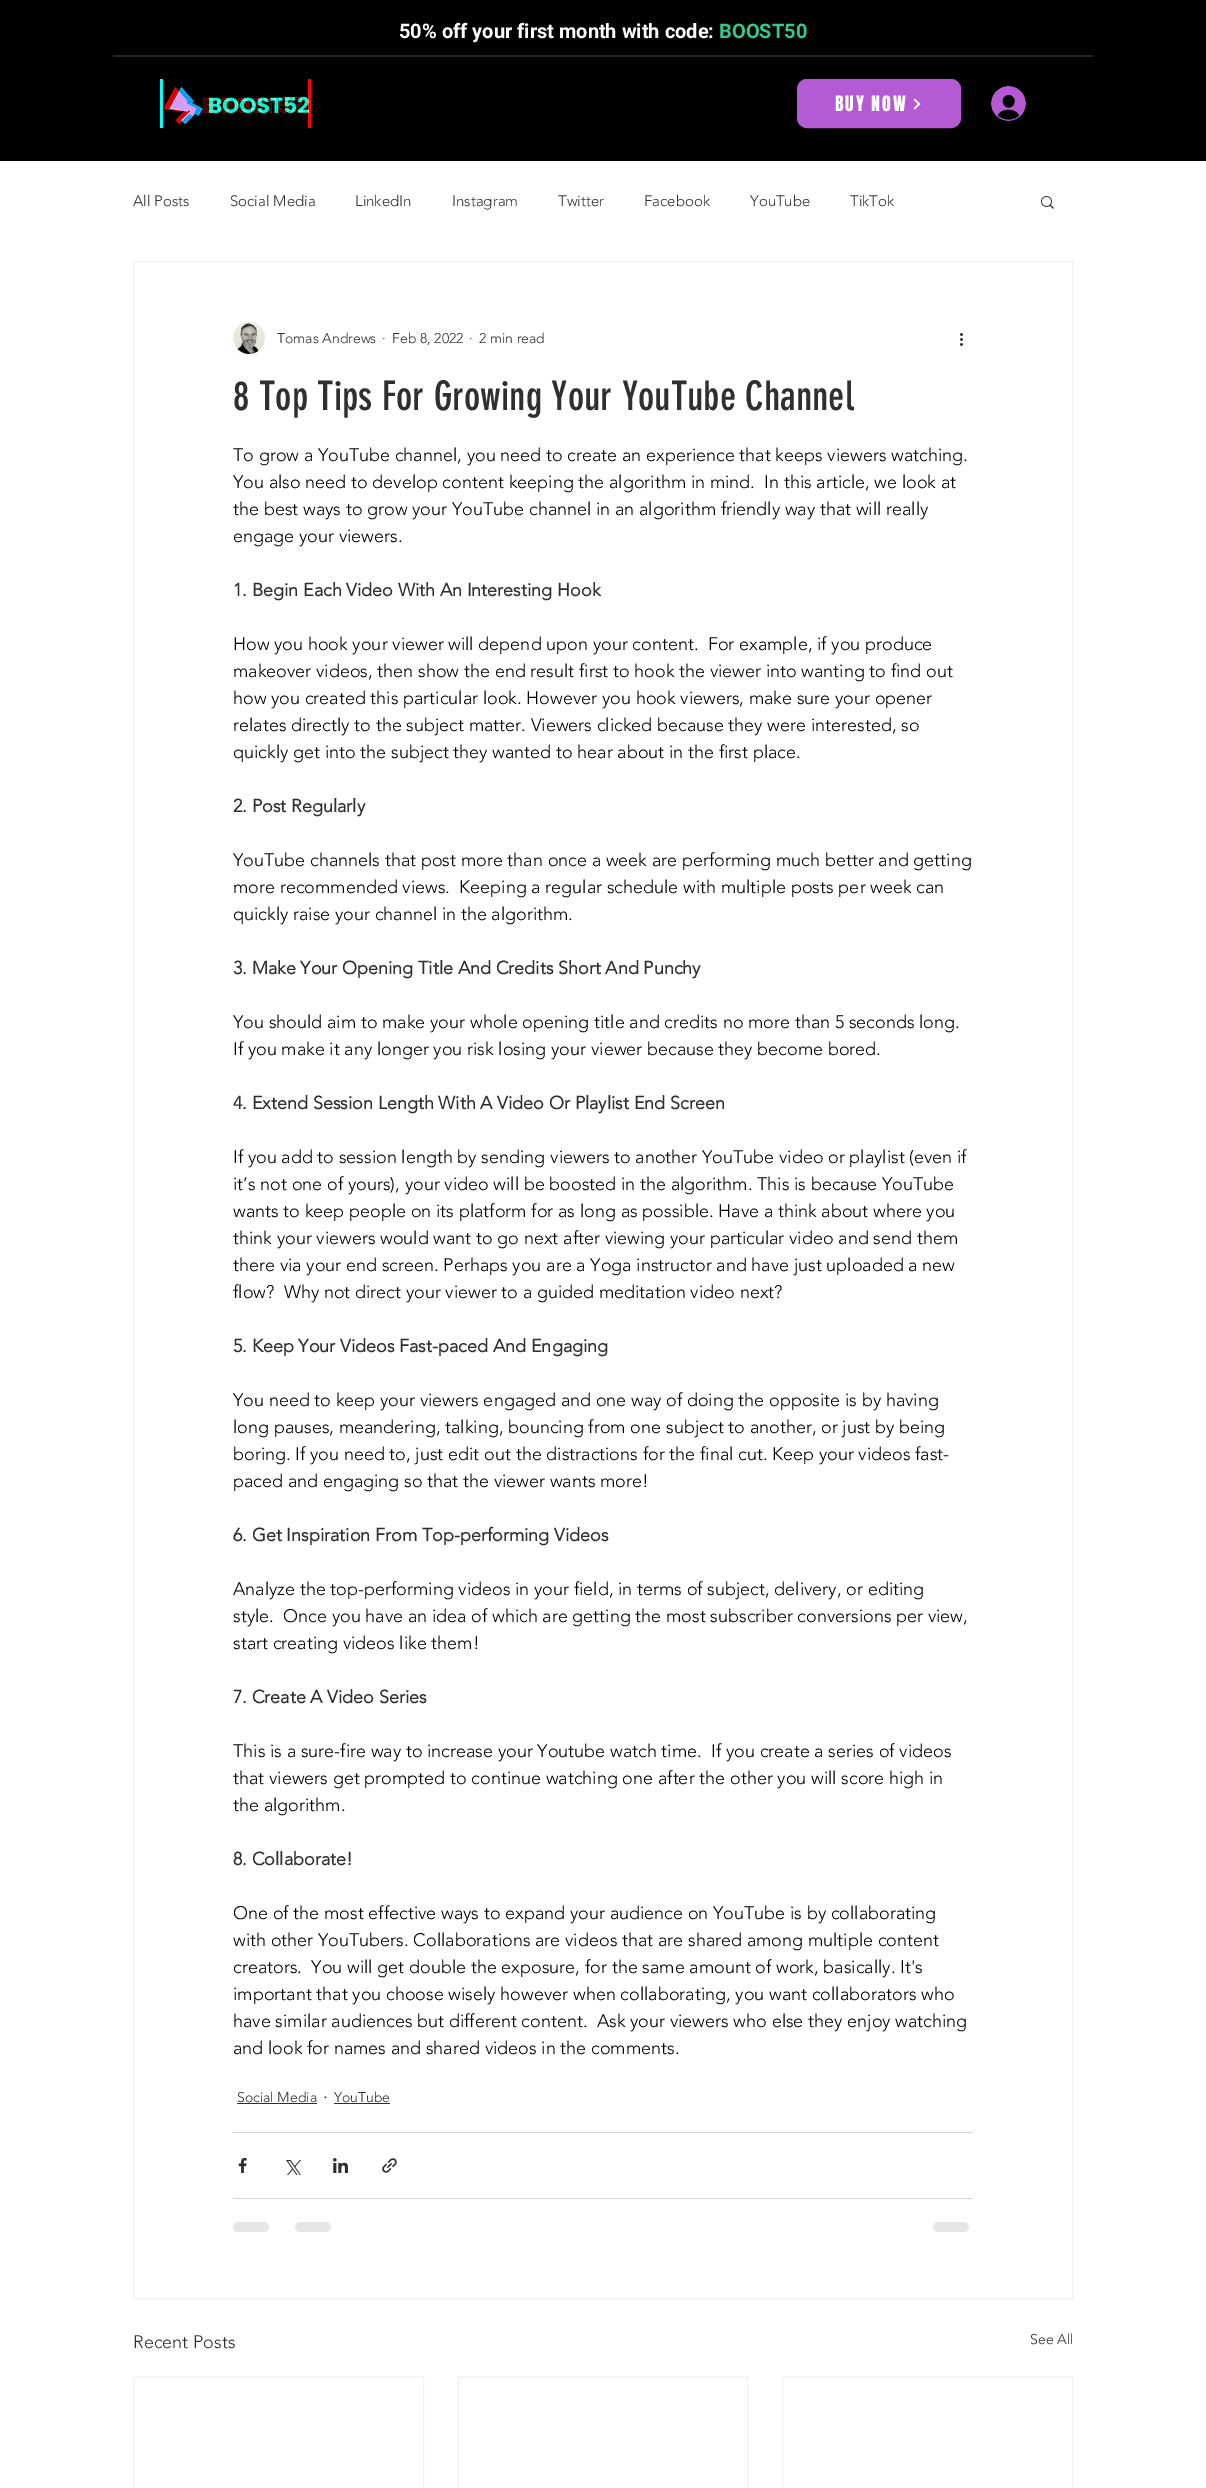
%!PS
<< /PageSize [1206 2488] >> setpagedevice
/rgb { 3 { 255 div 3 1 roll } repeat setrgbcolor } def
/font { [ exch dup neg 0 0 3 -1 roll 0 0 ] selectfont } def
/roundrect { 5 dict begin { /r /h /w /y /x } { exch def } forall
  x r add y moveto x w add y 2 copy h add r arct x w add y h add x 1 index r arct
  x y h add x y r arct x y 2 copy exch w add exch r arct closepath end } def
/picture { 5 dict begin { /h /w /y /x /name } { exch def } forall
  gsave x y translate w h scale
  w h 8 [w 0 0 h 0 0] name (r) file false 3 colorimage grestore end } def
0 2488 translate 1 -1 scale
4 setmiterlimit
255 255 255 rgb
0 0 1206 2488 rectfill
0 0 0 rgb
0 0 1206 161 rectfill
38 38 38 rgb
113 55 980 2 rectfill
(img/1.rgb) 160 79 151 49 picture
180 90 211 rgb
797.5 79.5 163 48 9.5 roundrect gsave fill grestore
stroke
(img/2.rgb) 913 98 8 12 picture
(img/3.rgb) 991 86 35 35 picture
(img/4.rgb) 1041 196 13 13 picture
242 242 242 rgb
133.5 261.5 939 2037 rectstroke
(img/5.rgb) 233 322 32 32 picture
(img/6.rgb) 960 333 3 13 picture
[
  [237 2103 80 1 47 47 48]
  [334 2103 56 1 47 47 48]
  [233 2132 740 1 213 213 214]
] { aload pop rgb rectfill } forall
(img/7.rgb) 238 2158 9 15 picture
(img/8.rgb) 286 2160 15 15 picture
(img/9.rgb) 333 2158 15 15 picture
(img/10.rgb) 382 2158 15 15 picture
233 2198 740 1 rectfill
230 230 230 rgb
233 2222 36 10 5 roundrect fill
295 2222 36 10 5 roundrect fill
933 2222 36 10 5 roundrect fill
242 242 242 rgb
133.5 2376.5 290 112 rectstroke
458.5 2376.5 289 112 rectstroke
782.5 2376.5 290 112 rectstroke
/Roboto-Bold 20 font
255 255 255 rgb
399 38 moveto (50% off your first month with code:) show
56 198 139 rgb
719 38 moveto (BOOST50) show
/Anton-Regular 18 font
255 255 255 rgb
835 111 moveto 1.75 0 (BUY NOW) ashow
/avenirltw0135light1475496-Light 15 font
47 47 48 rgb
[
  [(All Posts) 133 206]
  [(Social Media) 230 206]
  [(LinkedIn) 355 206]
  [(Instagram) 452 206]
  [(Twitter) 558 206]
  [(Facebook) 644 206]
  [(YouTube) 750 206]
  [(TikTok) 850 206]
] { aload pop moveto show } forall
/avenirltw0135light1475496-Light 14 font
[
  [(Tomas Andrews) 277 343]
  [(·) 382 343]
  [(Feb 8, 2022) 392 343]
  [(·) 469 343]
  [(2 min read) 479 343]
] { aload pop moveto show } forall
/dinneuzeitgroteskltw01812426-Regular 40 font
233 410 moveto (8 Top Tips For Growing Your YouTube Channel) show
/avenirltw0135light1475496-Light 18 font
0 0 0 rgb
[
  [(To grow a YouTube channel, you need to create an experience that keeps viewers watching.) 233 461]
  [(You also need to develop content keeping the algorithm in mind.  In this article, we look at) 233 488]
  [(the best ways to grow your YouTube channel in an algorithm friendly way that will really) 233 515]
  [(engage your viewers.) 233 542]
] { aload pop moveto show } forall
/avenirltw0135light1475496-Bold 18 font
47 47 48 rgb
233 596 moveto (1. Begin Each Video With An Interesting Hook) show
/avenirltw0135light1475496-Light 18 font
0 0 0 rgb
[
  [(How you hook your viewer will depend upon your content.  For example, if you produce) 233 650]
  [(makeover videos, then show the end result first to hook the viewer into wanting to find out) 233 677]
  [(how you created this particular look. However you hook viewers, make sure your opener) 233 704]
  [(relates directly to the subject matter. Viewers clicked because they were interested, so) 233 731]
  [(quickly get into the subject they wanted to hear about in the first place.) 233 758]
] { aload pop moveto show } forall
/avenirltw0135light1475496-Bold 18 font
47 47 48 rgb
233 812 moveto (2. Post Regularly) show
/avenirltw0135light1475496-Light 18 font
0 0 0 rgb
[
  [(YouTube channels that post more than once a week are performing much better and getting) 233 866]
  [(more recommended views.  Keeping a regular schedule with multiple posts per week can) 233 893]
  [(quickly raise your channel in the algorithm.) 233 920]
] { aload pop moveto show } forall
/avenirltw0135light1475496-Bold 18 font
47 47 48 rgb
233 974 moveto (3. Make Your Opening Title And Credits Short And Punchy) show
/avenirltw0135light1475496-Light 18 font
0 0 0 rgb
233 1028 moveto (You should aim to make your whole opening title and credits no more than 5 seconds long.) show
233 1055 moveto (If you make it any longer you risk losing your viewer because they become bored.) show
/avenirltw0135light1475496-Bold 18 font
47 47 48 rgb
233 1109 moveto (4. Extend Session Length With A Video Or Playlist End Screen) show
/avenirltw0135light1475496-Light 18 font
0 0 0 rgb
[
  [(If you add to session length by sending viewers to another YouTube video or playlist \(even if) 233 1163]
  [(it’s not one of yours\), your video will be boosted in the algorithm. This is because YouTube) 233 1190]
  [(wants to keep people on its platform for as long as possible. Have a think about where you) 233 1217]
  [(think your viewers would want to go next after viewing your particular video and send them) 233 1244]
  [(there via your end screen. Perhaps you are a Yoga instructor and have just uploaded a new) 233 1271]
  [(flow?  Why not direct your viewer to a guided meditation video next?) 233 1298]
] { aload pop moveto show } forall
/avenirltw0135light1475496-Bold 18 font
47 47 48 rgb
233 1352 moveto (5. Keep Your Videos Fast-paced And Engaging) show
/avenirltw0135light1475496-Light 18 font
0 0 0 rgb
[
  [(You need to keep your viewers engaged and one way of doing the opposite is by having) 233 1406]
  [(long pauses, meandering, talking, bouncing from one subject to another, or just by being) 233 1433]
  [(boring. If you need to, just edit out the distractions for the final cut. Keep your videos fast-) 233 1460]
  [(paced and engaging so that the viewer wants more!) 233 1487]
] { aload pop moveto show } forall
/avenirltw0135light1475496-Bold 18 font
47 47 48 rgb
233 1541 moveto (6. Get Inspiration From Top-performing Videos) show
/avenirltw0135light1475496-Light 18 font
0 0 0 rgb
[
  [(Analyze the top-performing videos in your field, in terms of subject, delivery, or editing) 233 1595]
  [(style.  Once you have an idea of which are getting the most subscriber conversions per view,) 233 1622]
  [(start creating videos like them!) 233 1649]
] { aload pop moveto show } forall
/avenirltw0135light1475496-Bold 18 font
47 47 48 rgb
233 1703 moveto (7. Create A Video Series) show
/avenirltw0135light1475496-Light 18 font
0 0 0 rgb
[
  [(This is a sure-fire way to increase your Youtube watch time.  If you create a series of videos) 233 1757]
  [(that viewers get prompted to continue watching one after the other you will score high in) 233 1784]
  [(the algorithm.) 233 1811]
] { aload pop moveto show } forall
/avenirltw0135light1475496-Bold 18 font
47 47 48 rgb
233 1865 moveto (8. Collaborate!) show
/avenirltw0135light1475496-Light 18 font
0 0 0 rgb
[
  [(One of the most effective ways to expand your audience on YouTube is by collaborating) 233 1919]
  [(with other YouTubers. Collaborations are videos that are shared among multiple content) 233 1946]
  [(creators.  You will get double the exposure, for the same amount of work, basically. It's) 233 1973]
  [(important that you choose wisely however when collaborating, you want collaborators who) 233 2000]
  [(have similar audiences but different content.  Ask your viewers who else they enjoy watching) 233 2027]
  [(and look for names and shared videos in the comments.) 233 2054]
] { aload pop moveto show } forall
/avenirltw0135light1475496-Light 14 font
47 47 48 rgb
237 2102 moveto (Social Media) show
/avenirltw0135light1475496-Light 18 font
323 2103 moveto (·) show
/avenirltw0135light1475496-Light 14 font
334 2102 moveto (YouTube) show
/avenirltw0135light1475496-Light 18 font
133 2348 moveto (Recent Posts) show
/avenirltw0135light1475496-Light 14 font
1030 2344 moveto (See All) show
showpage
